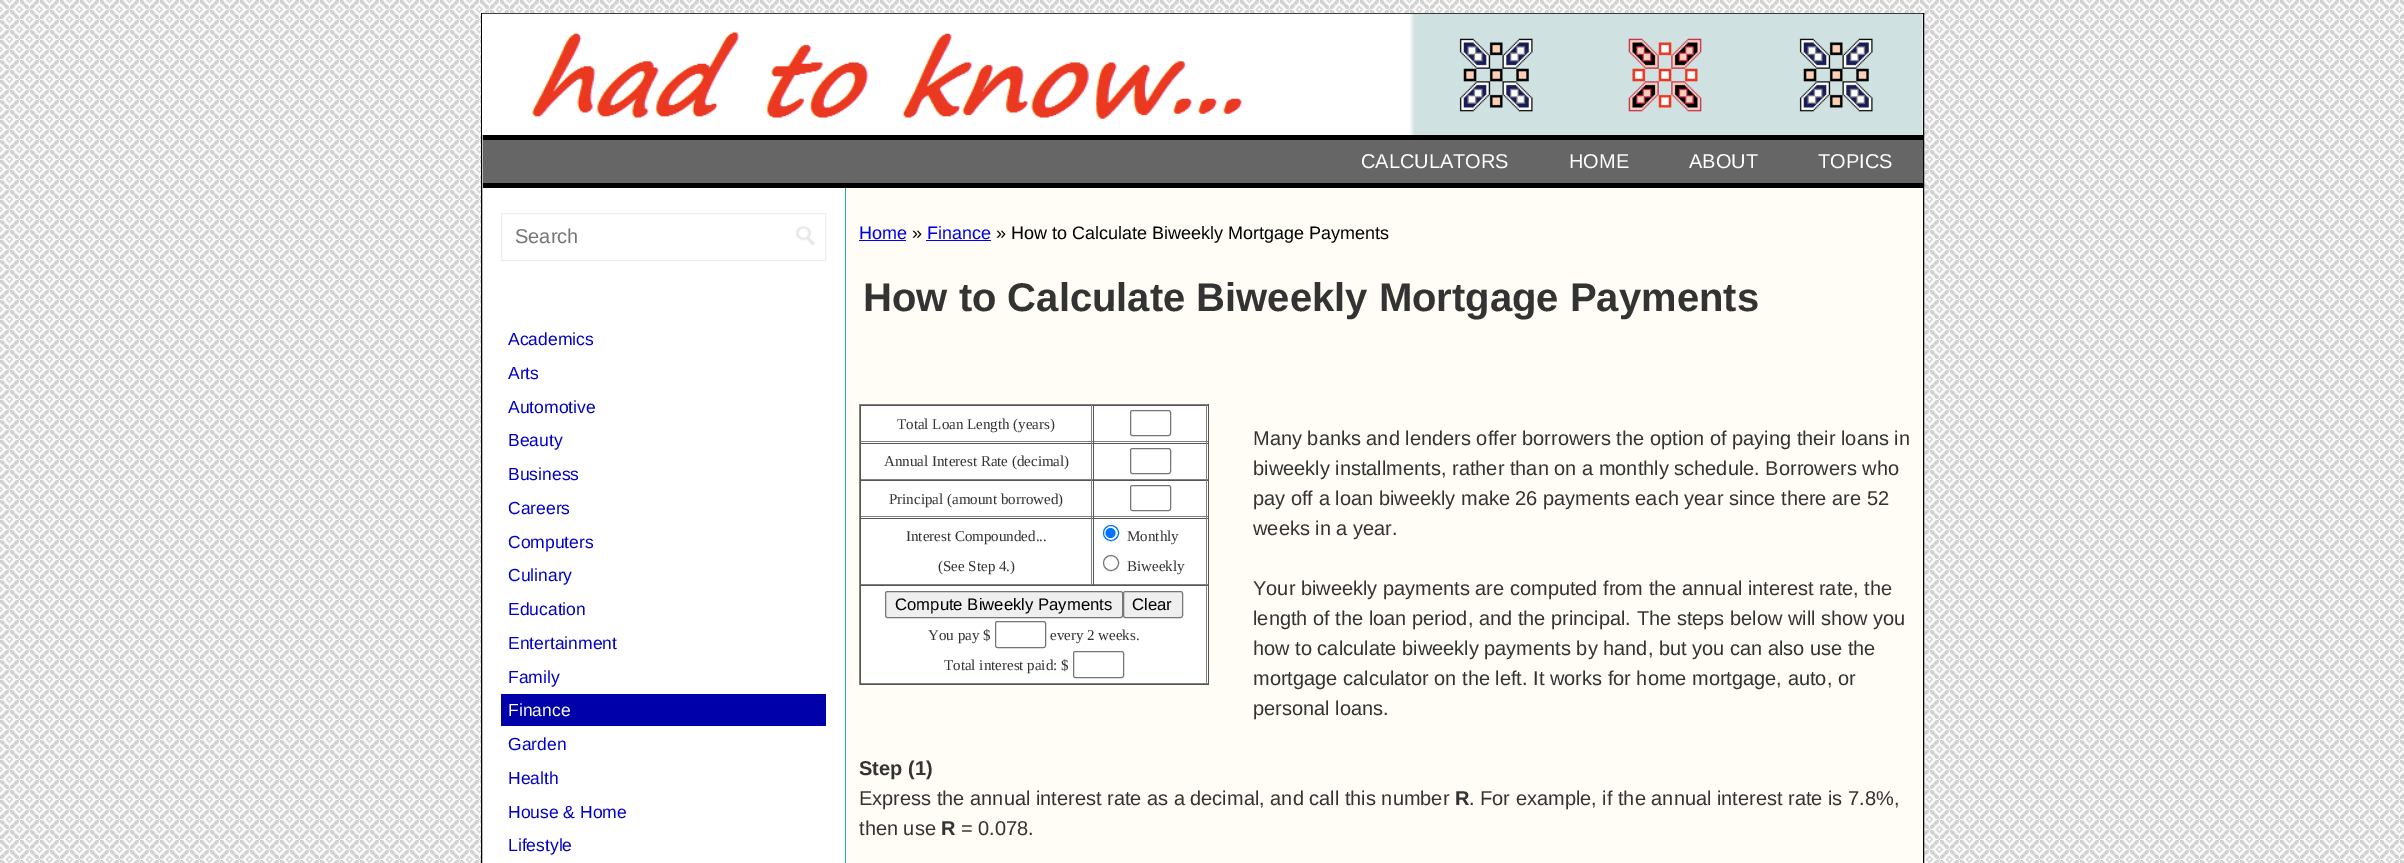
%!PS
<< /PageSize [2404 863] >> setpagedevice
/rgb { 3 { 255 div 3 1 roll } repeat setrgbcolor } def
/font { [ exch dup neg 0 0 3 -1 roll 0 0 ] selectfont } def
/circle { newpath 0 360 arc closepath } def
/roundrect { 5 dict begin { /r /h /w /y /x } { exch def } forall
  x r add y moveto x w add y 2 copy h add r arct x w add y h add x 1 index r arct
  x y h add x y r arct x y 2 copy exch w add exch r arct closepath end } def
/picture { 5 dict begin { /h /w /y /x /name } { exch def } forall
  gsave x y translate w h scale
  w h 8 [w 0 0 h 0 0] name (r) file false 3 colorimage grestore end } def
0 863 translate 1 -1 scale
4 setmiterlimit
255 255 255 rgb
0 0 2404 863 rectfill
(img/1.rgb) 0 0 2404 863 picture
255 253 246 rgb
482 14 1 849 rectfill
0 0 0 rgb
481.5 13.5 1442 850 rectstroke
255 255 255 rgb
1922 14 1 121 rectfill
(img/2.rgb) 482 13 1441 122 picture
[
  [483 140 1440 43 102 102 102]
  [483 135 1440 5 0 0 0]
  [483 183 1440 5 0 0 0]
  [483 188 362 675 255 255 255]
] { aload pop rgb rectfill } forall
238 238 238 rgb
501.5 213.5 324 47 rectstroke
(img/3.rgb) 796 226 19 20 picture
[
  [501 694 325 32 0 0 170]
  [846 188 1077 675 255 253 246]
  [845 188 1 675 34 170 170]
  [859 240 47 1 0 0 238]
  [926 240 65 1 0 0 238]
  [861 406 347 277 255 255 255]
  [859 404 350 1 128 128 128]
  [1208 404 1 281 85 85 85]
  [859 684 350 1 85 85 85]
  [859 404 1 281 128 128 128]
  [860 405 348 1 85 85 85]
  [1091 405 1 38 128 128 128]
  [860 441 233 1 128 128 128]
  [860 405 1 38 85 85 85]
  [1206 405 1 38 128 128 128]
  [1093 441 115 1 128 128 128]
  [1093 405 1 38 85 85 85]
] { aload pop rgb rectfill } forall
118 118 118 rgb
1130.5 410.5 40 25 2 roundrect stroke
[
  [860 443 348 1 85 85 85]
  [1091 443 1 37 128 128 128]
  [860 479 233 1 128 128 128]
  [860 443 1 37 85 85 85]
  [1206 443 1 37 128 128 128]
  [1093 479 115 1 128 128 128]
  [1093 443 1 37 85 85 85]
] { aload pop rgb rectfill } forall
118 118 118 rgb
1130.5 448.5 40 25 2 roundrect stroke
[
  [860 480 348 1 85 85 85]
  [1091 480 1 38 128 128 128]
  [860 516 233 1 128 128 128]
  [860 480 1 38 85 85 85]
  [1206 480 1 38 128 128 128]
  [1093 516 115 1 128 128 128]
  [1093 480 1 38 85 85 85]
] { aload pop rgb rectfill } forall
118 118 118 rgb
1130.5 485.5 40 25 2 roundrect stroke
[
  [860 518 348 1 85 85 85]
  [1091 518 1 67 128 128 128]
  [860 584 233 1 128 128 128]
  [860 518 1 67 85 85 85]
  [1206 518 1 67 128 128 128]
  [1093 584 115 1 128 128 128]
  [1093 518 1 67 85 85 85]
] { aload pop rgb rectfill } forall
0 117 255 rgb
1111 533 7.5 circle stroke
1110.5 533 5 circle fill
118 118 118 rgb
1111 563 7.5 circle stroke
[
  [860 585 348 1 85 85 85]
  [1206 585 1 99 128 128 128]
  [860 683 348 1 128 128 128]
  [860 585 1 99 85 85 85]
] { aload pop rgb rectfill } forall
239 239 239 rgb
885.5 591.5 237 26 2 roundrect gsave fill grestore
118 118 118 rgb
stroke
239 239 239 rgb
1123.5 591.5 59 26 2 roundrect gsave fill grestore
118 118 118 rgb
stroke
995.5 621.5 50 26 2 roundrect stroke
1073.5 651.5 50 26 2 roundrect stroke
/LiberationSans-Regular 20 font
255 255 255 rgb
[
  [(CALCULATORS) 1361 168]
  [(HOME) 1569 168]
  [(ABOUT) 1689 168]
  [(TOPICS) 1818 168]
] { aload pop moveto show } forall
117 117 117 rgb
515 243 moveto (Search) show
/LiberationSans-Regular 17.5 font
0 0 201 rgb
[
  [(Academics) 508 345]
  [(Arts) 508 379]
  [(Automotive) 508 413]
  [(Beauty) 508 446]
  [(Business) 508 480]
  [(Careers) 508 514]
  [(Computers) 508 548]
  [(Culinary) 508 581]
  [(Education) 508 615]
  [(Entertainment) 508 649]
  [(Family) 508 683]
] { aload pop moveto show } forall
255 255 255 rgb
508 716 moveto (Finance) show
0 0 201 rgb
[
  [(Garden) 508 750]
  [(Health) 508 784]
  [(House & Home) 508 818]
  [(Lifestyle) 508 851]
] { aload pop moveto show } forall
/LiberationSans-Regular 18 font
0 0 238 rgb
859 239 moveto (Home) show
0 0 0 rgb
912 239 moveto (») show
0 0 238 rgb
927 239 moveto (Finance) show
0 0 0 rgb
996 239 moveto (» How to Calculate Biweekly Mortgage Payments) show
/LiberationSans-Bold 40 font
51 51 51 rgb
863 311 moveto (How to Calculate Biweekly Mortgage Payments) show
/LiberationSerif-Regular 15 font
[
  [(Total Loan Length \(years\)) 897 429]
  [(Annual Interest Rate \(decimal\)) 884 466]
  [(Principal \(amount borrowed\)) 889 504]
  [(Interest Compounded...) 906 541]
  [(\(See Step 4.\)) 938 571]
  [(Monthly) 1127 541]
  [(Biweekly) 1127 571]
] { aload pop moveto show } forall
/LiberationSans-Regular 16.7 font
0 0 0 rgb
895 610 moveto (Compute Biweekly Payments) show
1132 610 moveto (Clear) show
/LiberationSerif-Regular 15 font
51 51 51 rgb
[
  [(You pay $) 928 640]
  [(every 2 weeks.) 1050 640]
  [(Total interest paid: $) 944 670]
] { aload pop moveto show } forall
/LiberationSans-Regular 20 font
[
  [(Many banks and lenders offer borrowers the option of paying their loans in) 1253 445]
  [(biweekly installments, rather than on a monthly schedule. Borrowers who) 1253 475]
  [(pay off a loan biweekly make 26 payments each year since there are 52) 1253 505]
  [(weeks in a year.) 1253 535]
  [(Your biweekly payments are computed from the annual interest rate, the) 1253 595]
  [(length of the loan period, and the principal. The steps below will show you) 1253 625]
  [(how to calculate biweekly payments by hand, but you can also use the) 1253 655]
  [(mortgage calculator on the left. It works for home mortgage, auto, or) 1253 685]
  [(personal loans.) 1253 715]
] { aload pop moveto show } forall
/LiberationSans-Bold 20 font
859 775 moveto (Step \(1\)) show
/LiberationSans-Regular 20 font
859 805 moveto (Express the annual interest rate as a decimal, and call this number) show
/LiberationSans-Bold 20 font
1455 805 moveto (R) show
/LiberationSans-Regular 20 font
1469 805 moveto (. For example, if the annual interest rate is 7.8%,) show
859 835 moveto (then use) show
/LiberationSans-Bold 20 font
941 835 moveto (R) show
/LiberationSans-Regular 20 font
961 835 moveto (= 0.078.) show
showpage
